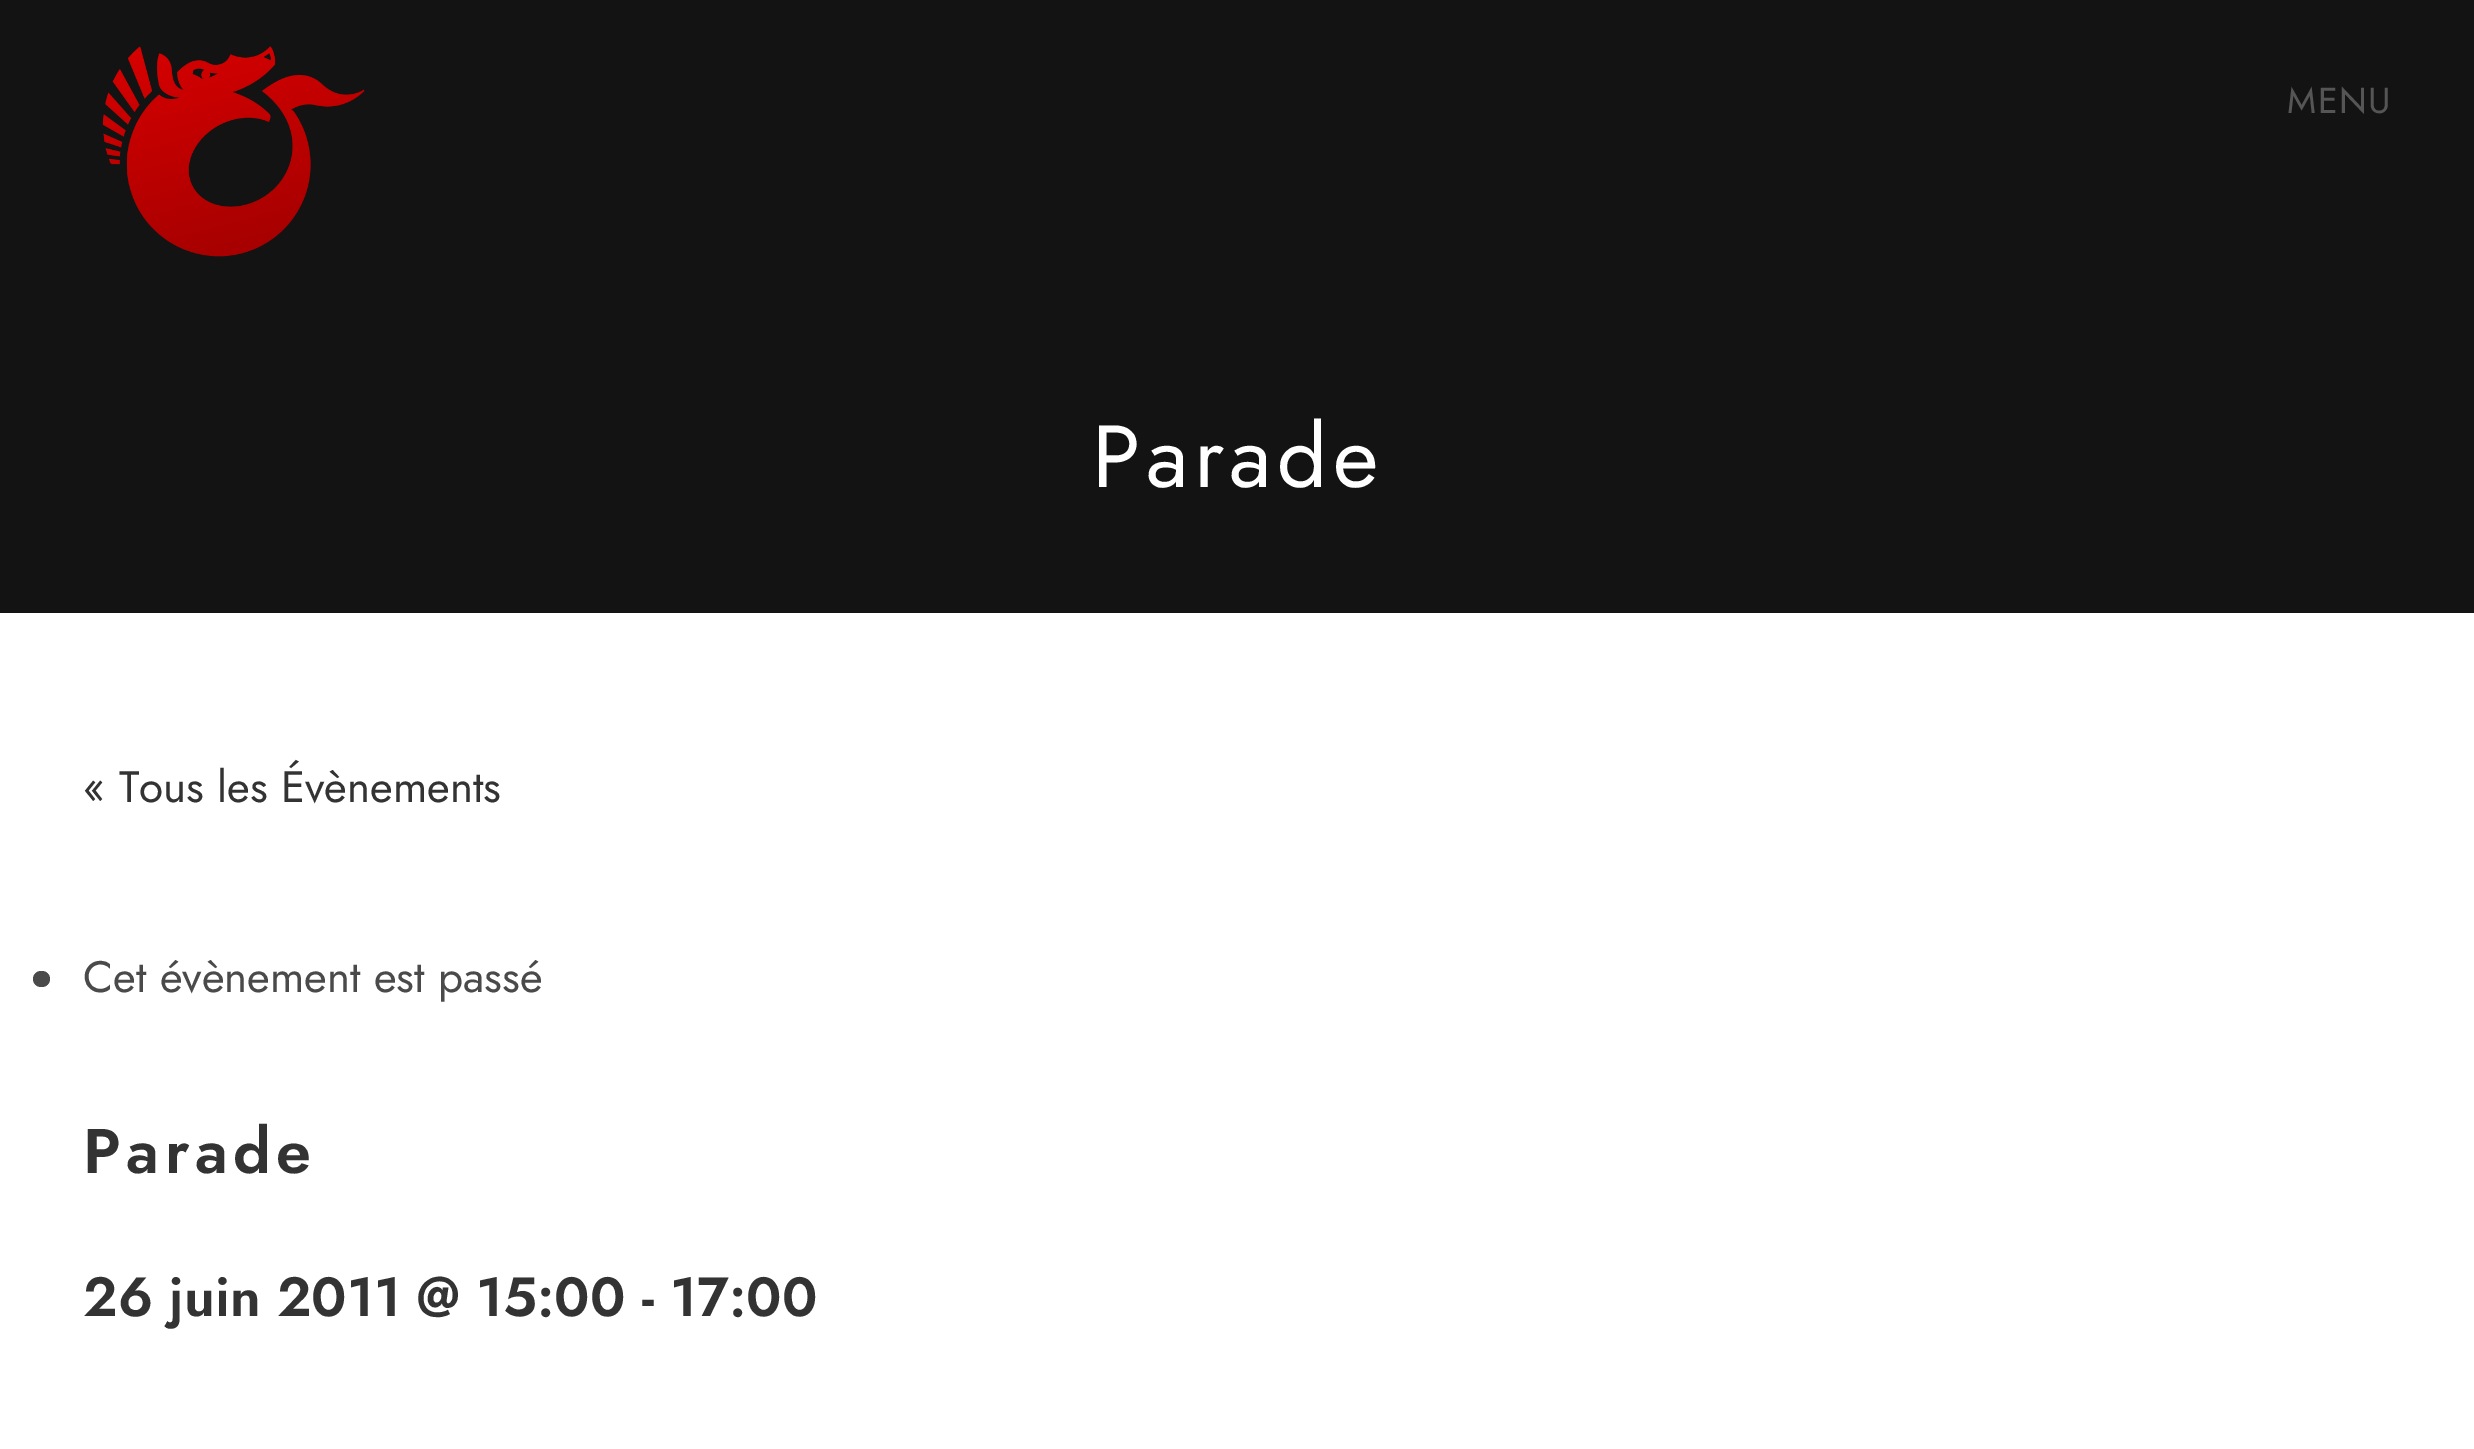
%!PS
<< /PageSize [2474 1449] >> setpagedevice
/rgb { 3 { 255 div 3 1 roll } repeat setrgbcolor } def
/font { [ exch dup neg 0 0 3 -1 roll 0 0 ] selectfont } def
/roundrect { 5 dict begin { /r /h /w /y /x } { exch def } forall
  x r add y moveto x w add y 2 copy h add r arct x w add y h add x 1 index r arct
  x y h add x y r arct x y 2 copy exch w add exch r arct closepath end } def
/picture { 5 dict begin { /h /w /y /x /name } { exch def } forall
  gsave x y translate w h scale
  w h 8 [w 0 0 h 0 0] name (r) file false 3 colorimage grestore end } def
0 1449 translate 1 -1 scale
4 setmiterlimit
255 255 255 rgb
0 0 2474 1449 rectfill
19 19 19 rgb
0 0 2474 613 rectfill
(img/1.rgb) 102 46 263 211 picture
74 74 74 rgb
33 971 17 16 8 roundrect fill
/Jost-Regular 36 font
85 85 85 rgb
2287 113 moveto 1.5 0 (MENU) ashow
/Jost-Regular 88 font
255 255 255 rgb
1092 487 moveto 5.5 0 (Parade) ashow
/Jost-Regular 44 font
51 51 51 rgb
83 802 moveto (« Tous les Évènements) show
74 74 74 rgb
83 992 moveto (Cet évènement est passé) show
/Jost-SemiBold 63 font
51 51 51 rgb
83 1173 moveto 5.5 0 (Parade) ashow
/Jost-SemiBold 55 font
83 1316 moveto (26 juin 2011 @ 15:00 - 17:00) show
showpage
